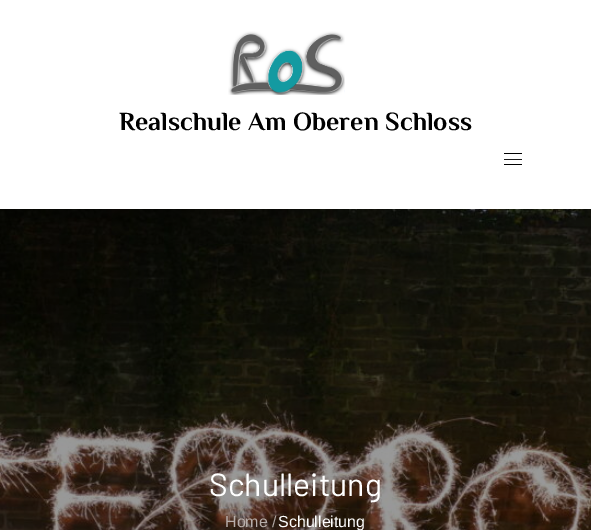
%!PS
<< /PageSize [591 530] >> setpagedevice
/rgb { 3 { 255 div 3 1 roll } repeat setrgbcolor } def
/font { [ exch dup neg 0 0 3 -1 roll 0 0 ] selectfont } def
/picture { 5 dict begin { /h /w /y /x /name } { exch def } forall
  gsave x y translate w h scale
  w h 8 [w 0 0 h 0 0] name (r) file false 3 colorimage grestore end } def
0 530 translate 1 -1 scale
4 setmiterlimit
255 255 255 rgb
0 0 591 530 rectfill
(img/1.rgb) 228 31 117 64 picture
[
  [504 153 18 1 0 0 0]
  [504 159 18 1 26 26 26]
  [504 164 18 1 0 0 0]
] { aload pop rgb rectfill } forall
(img/2.rgb) 0 209 591 321 picture
/Philosopher-Bold 26 font
119 130 moveto (Realschule Am Oberen Schloss) show
/Barlow-Regular 32 font
255 255 255 rgb
209 496 moveto (Schulleitung) show
/LiberationSans-Regular 16 font
183 174 170 rgb
225 527 moveto (Home) show
172 164 160 rgb
272 527 moveto (/) show
255 255 255 rgb
278 527 moveto (Schulleitung) show
showpage
